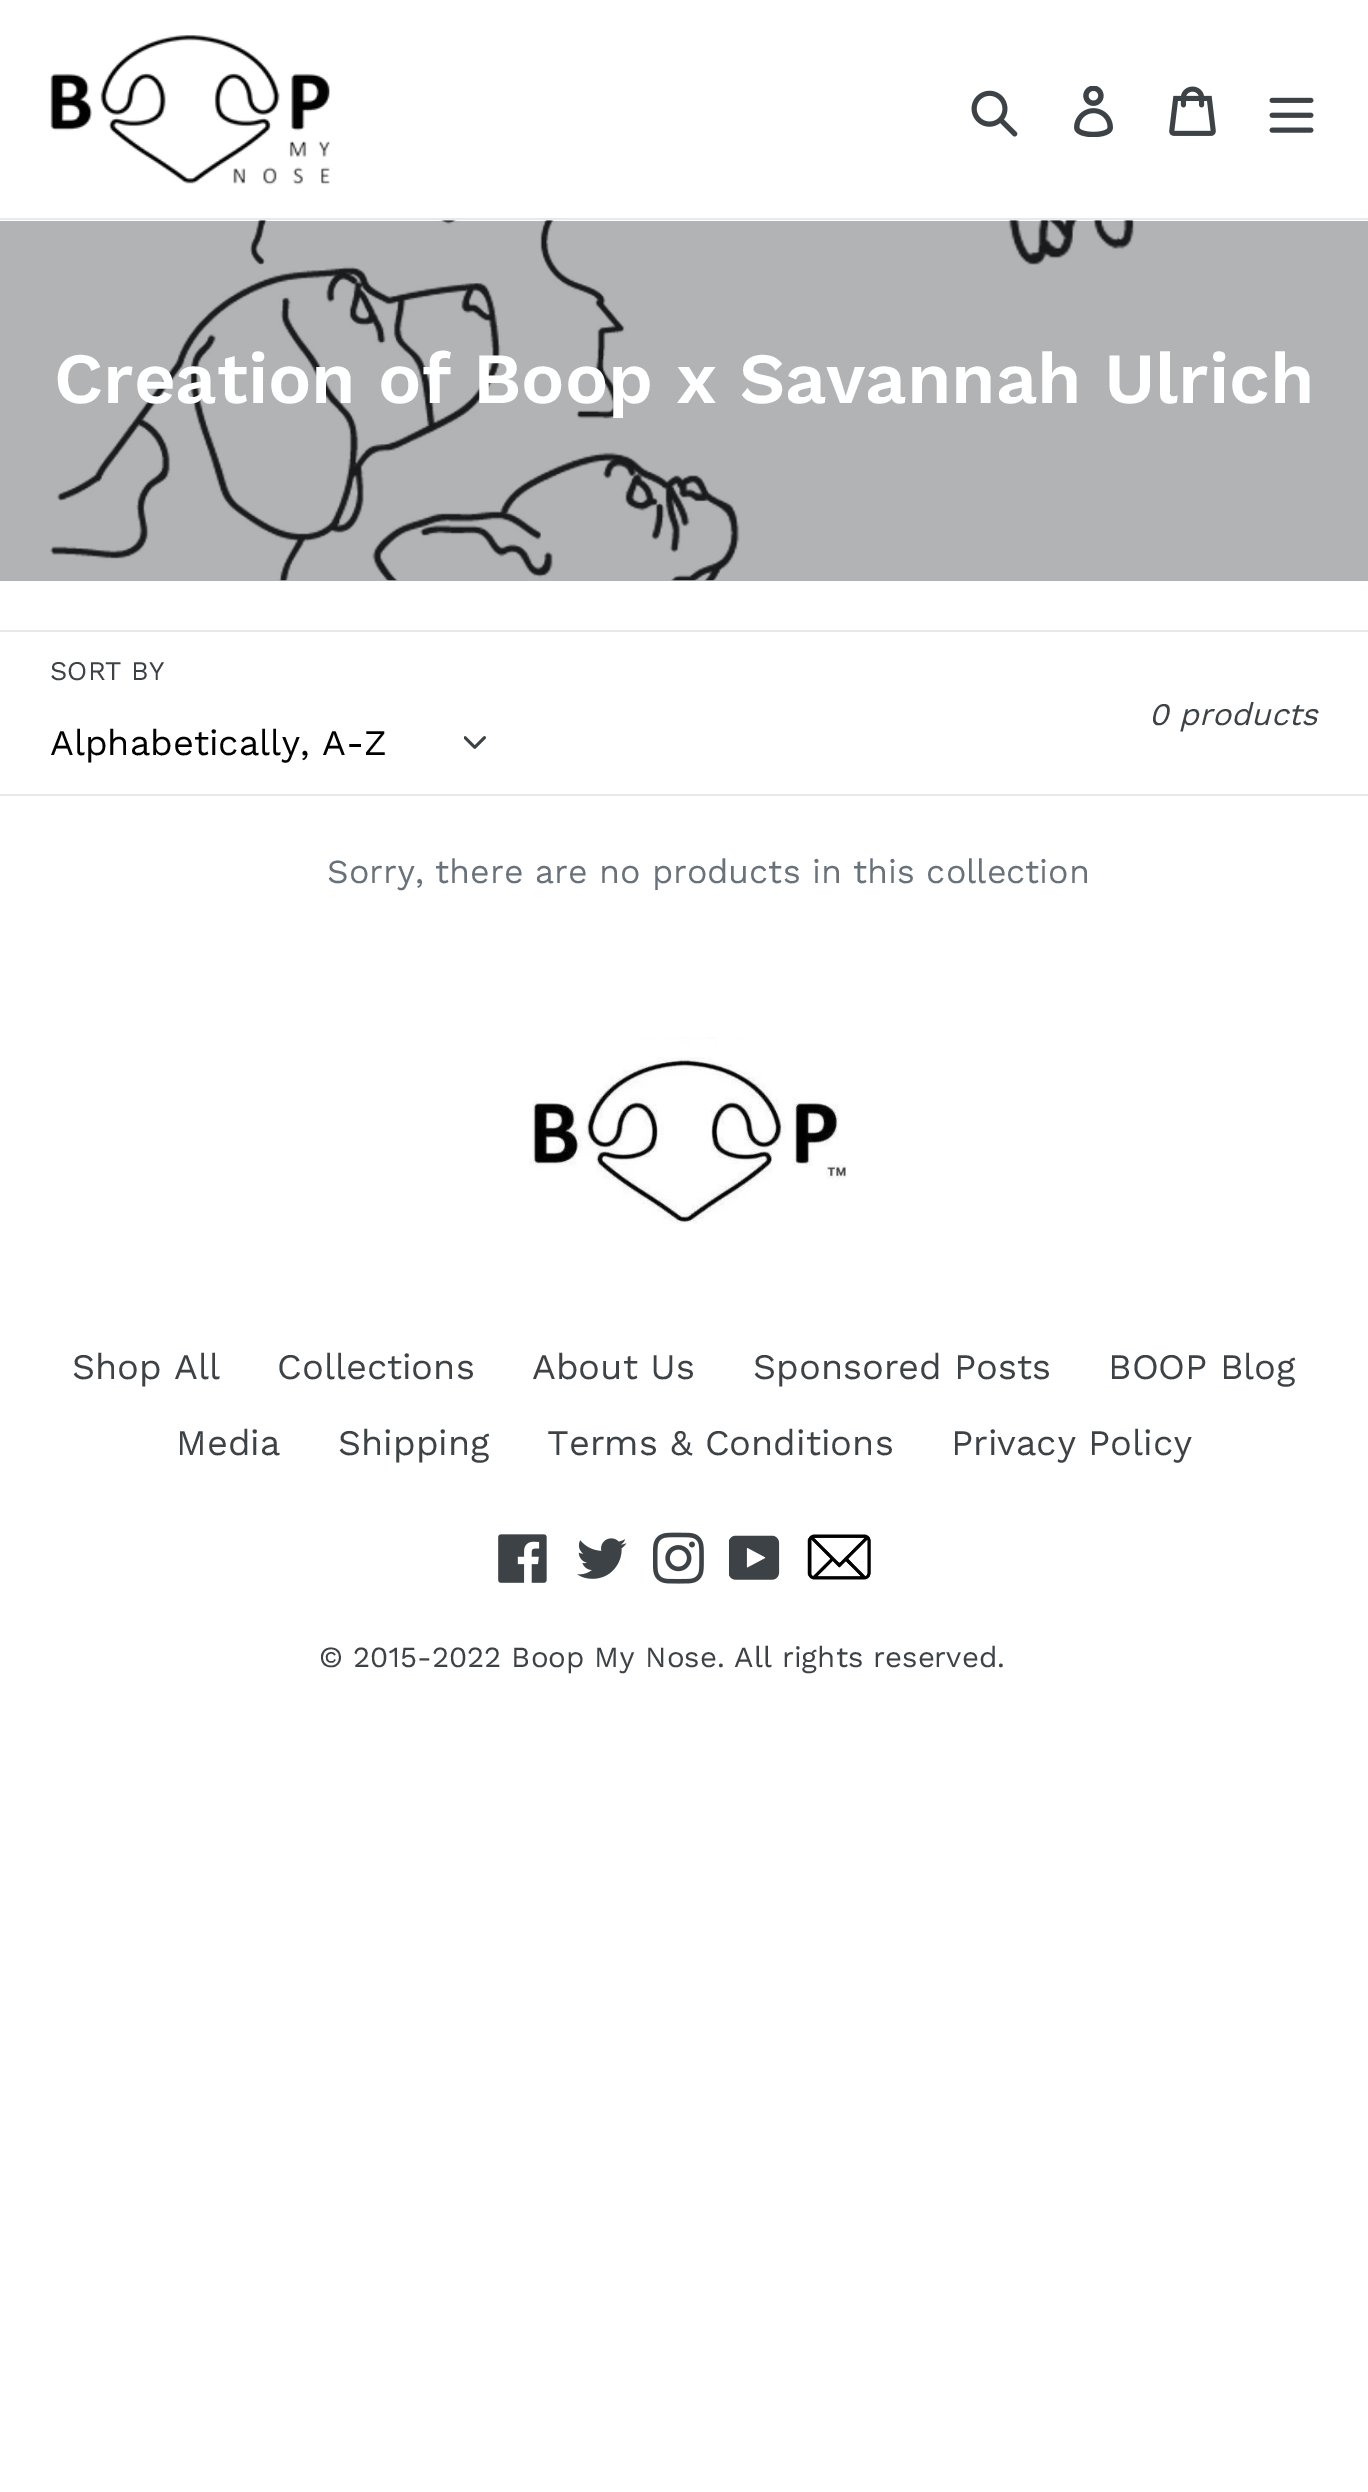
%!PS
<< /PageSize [1368 2492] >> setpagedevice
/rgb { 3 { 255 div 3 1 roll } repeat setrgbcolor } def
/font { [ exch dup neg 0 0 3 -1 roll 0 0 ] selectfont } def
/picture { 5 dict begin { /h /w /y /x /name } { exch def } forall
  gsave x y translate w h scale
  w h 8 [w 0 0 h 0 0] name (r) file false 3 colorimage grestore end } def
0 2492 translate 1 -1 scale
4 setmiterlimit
255 255 255 rgb
0 0 1368 2492 rectfill
177 179 181 rgb
0 221 1368 360 rectfill
232 233 235 rgb
0 218 1368 2 rectfill
(img/1.rgb) 50 35 281 150 picture
(img/2.rgb) 971 90 47 47 picture
(img/3.rgb) 1074 86 39 51 picture
(img/4.rgb) 1169 86 47 50 picture
(img/5.rgb) 1269 97 45 36 picture
(img/6.rgb) 49 220 1086 361 picture
0 630 1368 2 rectfill
0 794 1368 2 rectfill
(img/7.rgb) 464 736 22 13 picture
(img/8.rgb) 529 1037 317 187 picture
(img/9.rgb) 498 1534 49 49 picture
(img/10.rgb) 577 1538 50 41 picture
(img/11.rgb) 653 1532 51 52 picture
(img/12.rgb) 729 1535 51 45 picture
(img/13.rgb) 807 1534 64 46 picture
/WorkSans-SemiBold 72 font
255 255 255 rgb
54 403 moveto (Creation of Boop x Savannah Ulrich) show
/WorkSans-Regular 27 font
61 66 70 rgb
50 680 moveto (SORT BY) show
/WorkSans-Regular 36 font
0 0 0 rgb
50 755 moveto (Alphabetically, A-Z) show
/WorkSans-Italic 31.5 font
61 66 70 rgb
1149 725 moveto (0 products) show
/WorkSans-Regular 33.75 font
105 114 123 rgb
327 883 moveto (Sorry, there are no products in this collection) show
/WorkSans-Regular 36 font
61 66 70 rgb
[
  [(Shop All) 72 1379]
  [(Collections) 277 1379]
  [(About Us) 532 1379]
  [(Sponsored Posts) 753 1379]
  [(BOOP Blog) 1108 1379]
  [(Media) 176 1455]
  [(Shipping) 338 1455]
  [(Terms & Conditions) 547 1455]
  [(Privacy Policy) 951 1455]
] { aload pop moveto show } forall
/WorkSans-Regular 29.25 font
319 1667 moveto (© 2015-2022 Boop My Nose. All rights reserved.) show
showpage
